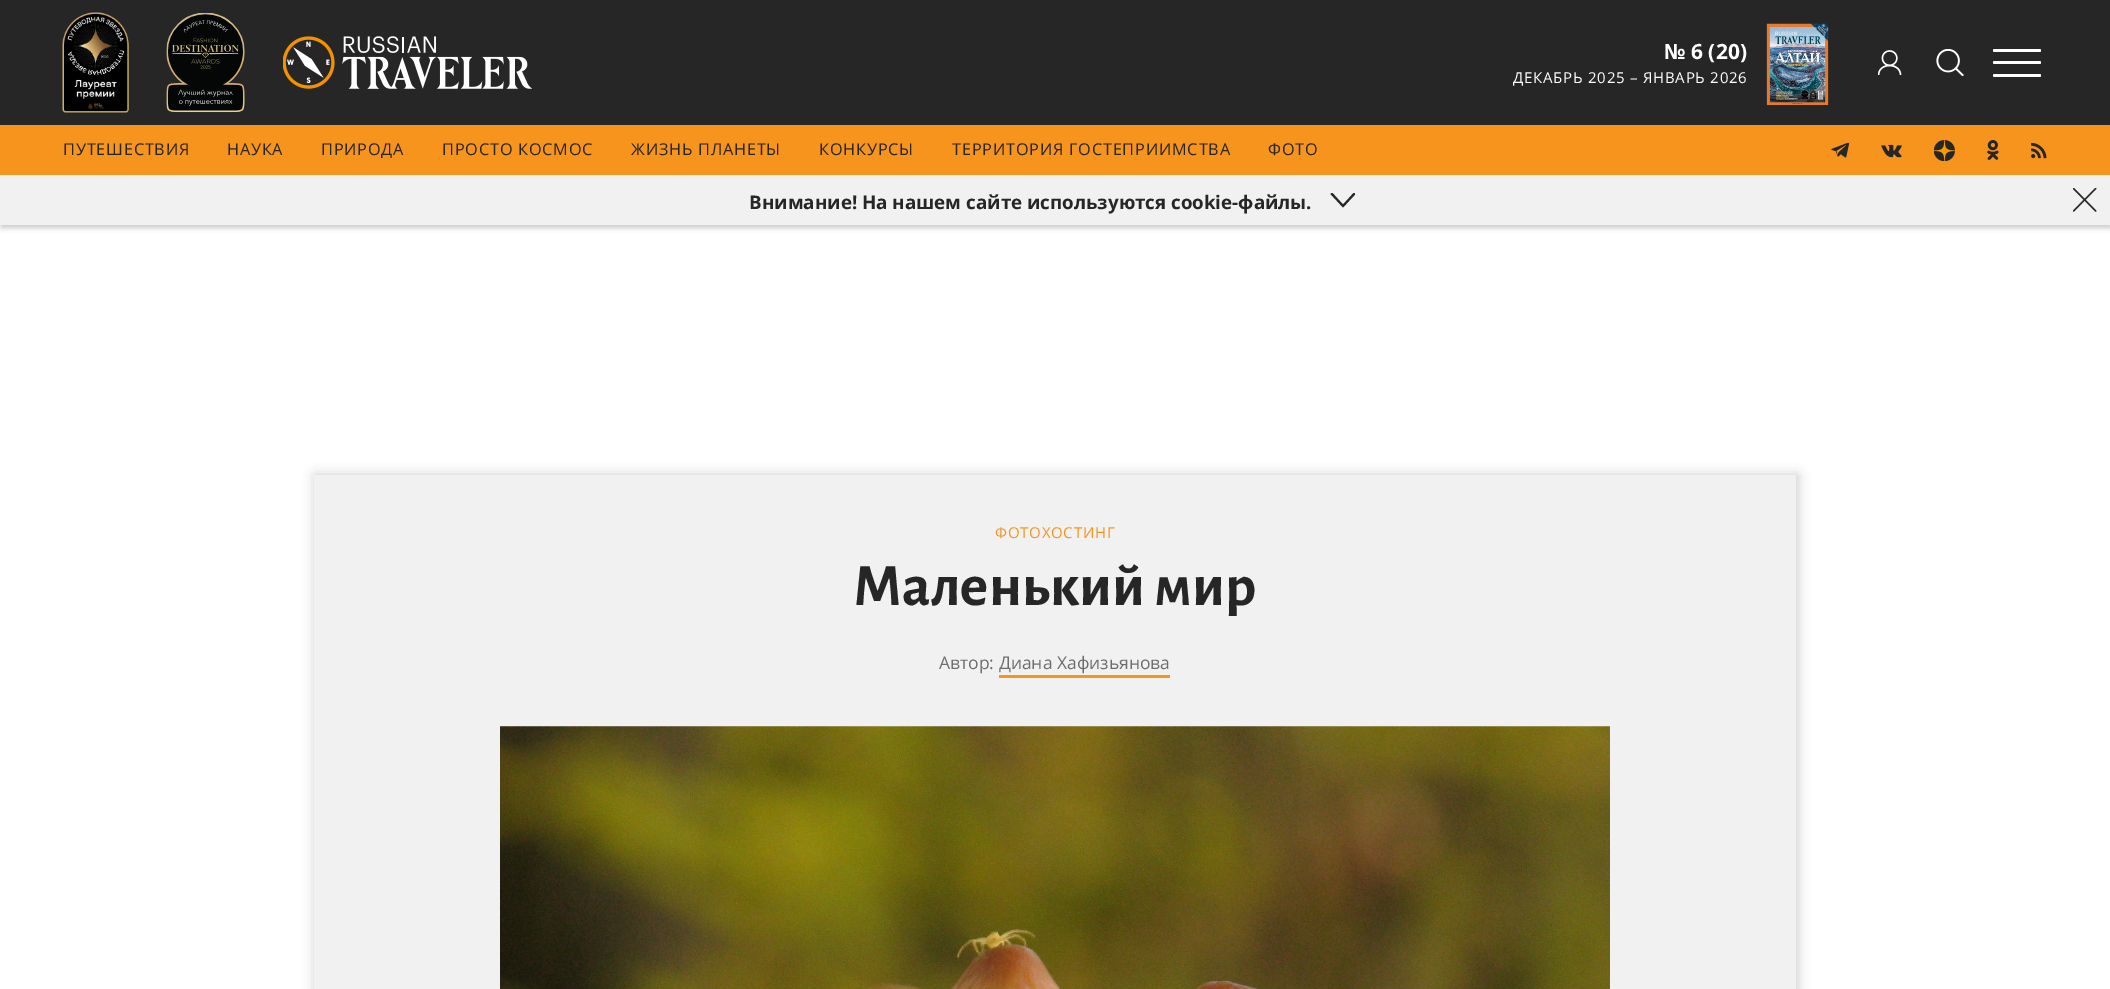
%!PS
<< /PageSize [2110 989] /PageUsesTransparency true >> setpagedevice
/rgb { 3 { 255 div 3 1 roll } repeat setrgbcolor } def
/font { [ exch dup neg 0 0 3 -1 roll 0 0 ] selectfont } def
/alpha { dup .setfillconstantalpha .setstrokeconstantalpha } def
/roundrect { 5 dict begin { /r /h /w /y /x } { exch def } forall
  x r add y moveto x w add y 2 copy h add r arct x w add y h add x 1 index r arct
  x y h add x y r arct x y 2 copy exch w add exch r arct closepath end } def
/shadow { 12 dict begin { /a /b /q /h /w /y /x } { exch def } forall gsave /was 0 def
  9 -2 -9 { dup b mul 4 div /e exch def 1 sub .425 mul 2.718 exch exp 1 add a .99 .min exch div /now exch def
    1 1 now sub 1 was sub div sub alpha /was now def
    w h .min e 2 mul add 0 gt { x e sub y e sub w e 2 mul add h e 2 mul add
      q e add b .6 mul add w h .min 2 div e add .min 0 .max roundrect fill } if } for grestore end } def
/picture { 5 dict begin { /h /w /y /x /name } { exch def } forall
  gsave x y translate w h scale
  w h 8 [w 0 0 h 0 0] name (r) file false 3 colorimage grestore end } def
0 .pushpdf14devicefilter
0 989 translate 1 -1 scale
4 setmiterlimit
255 255 255 rgb
0 0 2110 989 rectfill
0 0 0 rgb
1 3 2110 225 0 2.5 0.2 shadow
38 38 38 rgb
0 0 2110 125 rectfill
(img/1.rgb) 62 12 67 101 picture
(img/2.rgb) 166 13 79 100 picture
(img/3.rgb) 283 36 249 53 picture
(img/4.rgb) 1766 23 63 82 picture
(img/5.rgb) 1878 50 24 25 picture
(img/6.rgb) 1936 49 28 27 picture
255 255 255 rgb
1993 49 48 3 1.5 roundrect fill
1993 61 48 3 1.5 roundrect fill
1993 74 48 3 1.5 roundrect fill
247 148 29 rgb
0 125 2110 50 rectfill
(img/7.rgb) 1831 143 19 15 picture
(img/8.rgb) 1881 144 21 14 picture
(img/9.rgb) 1934 140 21 21 picture
(img/10.rgb) 1987 140 12 20 picture
(img/11.rgb) 2031 143 16 16 picture
241 241 241 rgb
0 175 2110 50 rectfill
gsave
1330 193 25 15 rectclip
38 38 38 rgb
1332 192.5 moveto 1330.5 194 lineto 1343 207.5 lineto 1355.5 194 lineto 1354 192.5 lineto 1343 204.5 lineto closepath fill
grestore
(img/12.rgb) 2073 188 24 24 picture
0 0 0 rgb
315 475 1483 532 0 6 0.2 shadow
241 241 241 rgb
314 475 1482 514 rectfill
247 148 29 rgb
999 675 171 3 rectfill
(img/13.rgb) 500 726 1110 263 picture
/OpenSans-Bold 21 font
255 255 255 rgb
1664 59 moveto (№ 6 \(20\)) show
/OpenSans-Regular 15 font
1513 83 moveto 0.75 0 (ДЕКАБРЬ 2025 – ЯНВАРЬ 2026) ashow
/OpenSans-Regular 16.25 font
38 38 38 rgb
63 155 moveto 0.8 0 (ПУТЕШЕСТВИЯ) ashow
227 155 moveto 0.8 0 (НАУКА) ashow
321 155 moveto 0.8 0 (ПРИРОДА) ashow
442 155 moveto 0.8 0 (ПРОСТО КОСМОС) ashow
631 155 moveto 0.8 0 (ЖИЗНЬ ПЛАНЕТЫ) ashow
819 155 moveto 0.8 0 (КОНКУРСЫ) ashow
952 155 moveto 0.8 0 (ТЕРРИТОРИЯ ГОСТЕПРИИМСТВА) ashow
1268 155 moveto 0.8 0 (ФОТО) ashow
/OpenSans-Bold 18.75 font
749 209 moveto (Внимание! На нашем сайте используются cookie-файлы.) show
/OpenSans-Regular 15 font
247 148 29 rgb
995 538 moveto 0.75 0 (ФОТОХОСТИНГ) ashow
/AlegreyaSans-Bold 60 font
38 38 38 rgb
853 605 moveto (Маленький мир) show
/OpenSans-Regular 17.5 font
109 109 109 rgb
939 669 moveto (Автор: Диана Хафизьянова) show
.poppdf14devicefilter showpage
